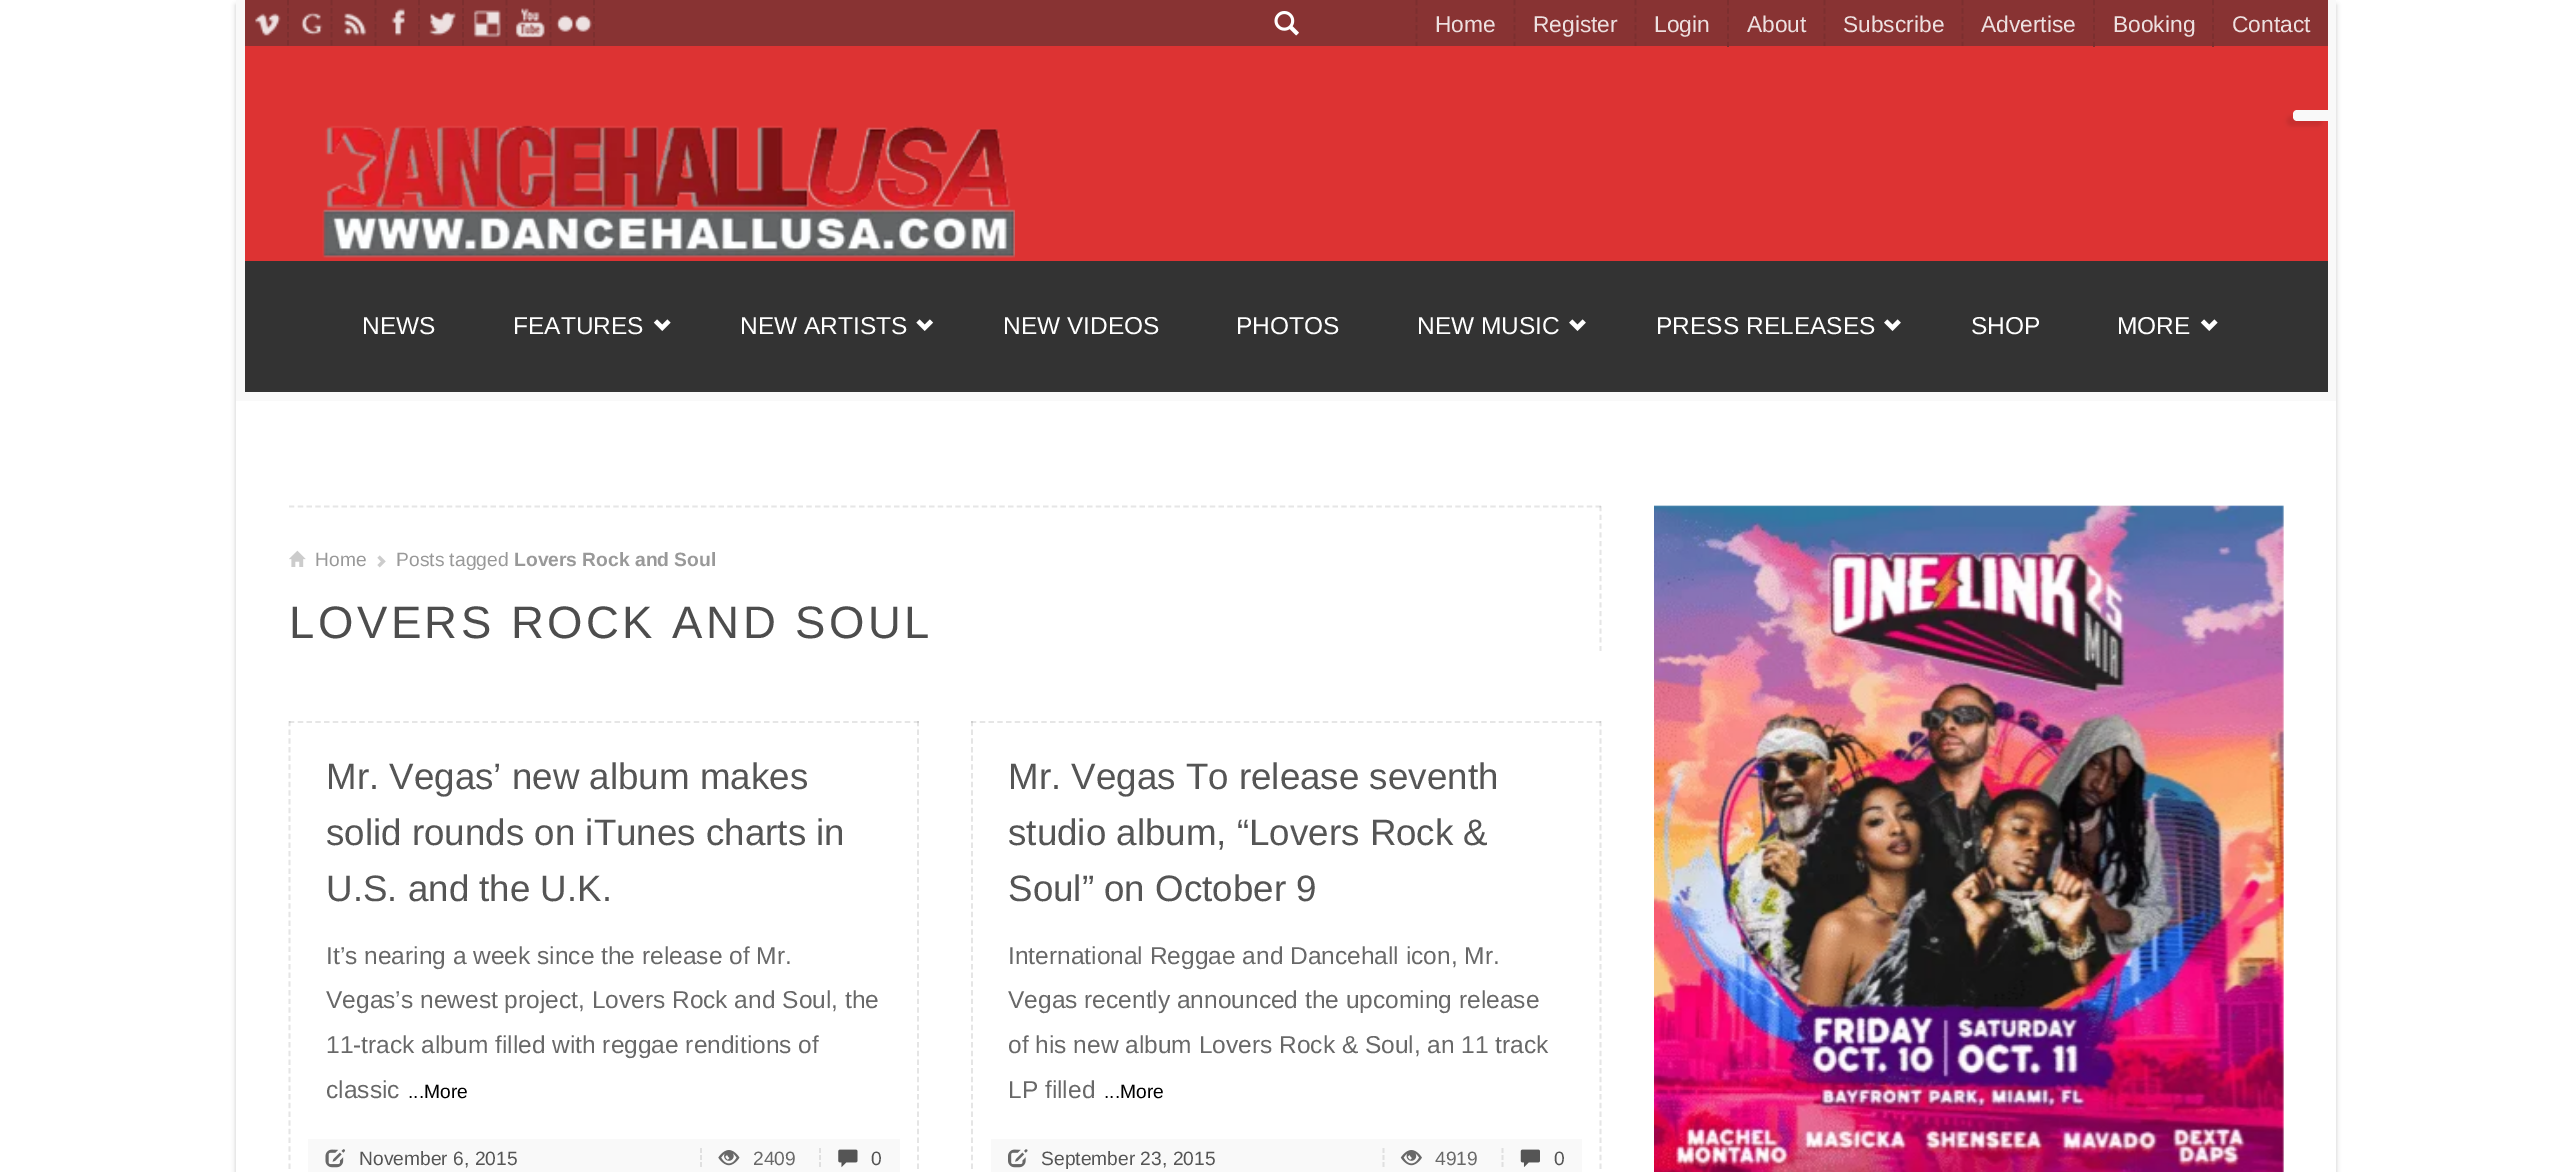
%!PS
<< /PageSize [2571 1172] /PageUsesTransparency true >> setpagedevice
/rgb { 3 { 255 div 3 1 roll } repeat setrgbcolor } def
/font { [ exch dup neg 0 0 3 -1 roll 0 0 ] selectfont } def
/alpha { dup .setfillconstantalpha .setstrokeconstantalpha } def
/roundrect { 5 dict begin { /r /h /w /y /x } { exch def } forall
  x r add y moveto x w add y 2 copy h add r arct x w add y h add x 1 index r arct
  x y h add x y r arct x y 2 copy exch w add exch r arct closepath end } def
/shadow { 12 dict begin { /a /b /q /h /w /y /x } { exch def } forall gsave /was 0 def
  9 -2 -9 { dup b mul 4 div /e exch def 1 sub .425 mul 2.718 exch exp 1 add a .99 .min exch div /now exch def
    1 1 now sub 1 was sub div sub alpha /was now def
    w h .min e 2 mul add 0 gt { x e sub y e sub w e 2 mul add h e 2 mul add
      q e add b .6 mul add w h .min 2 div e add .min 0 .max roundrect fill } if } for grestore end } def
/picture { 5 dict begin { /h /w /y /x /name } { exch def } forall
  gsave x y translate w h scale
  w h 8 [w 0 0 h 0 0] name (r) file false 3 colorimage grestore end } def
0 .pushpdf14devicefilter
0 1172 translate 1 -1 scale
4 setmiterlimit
255 255 255 rgb
0 0 2571 1172 rectfill
0 0 0 rgb
236 5 2100 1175 0 2.5 0.2 shadow
[
  [236 401 2100 771 255 255 255]
  [236 0 2100 401 249 249 249]
  [245 46 2083 215 221 51 51]
  [245 0 2083 46 136 51 51]
] { aload pop rgb rectfill } forall
(img/1.rgb) 255 13 26 23 picture
124 47 47 rgb
1.8 setlinewidth
[5.25 2.8] 0 setdash
288 0 moveto 288 45.5 lineto stroke
(img/2.rgb) 301 12 22 24 picture
331.5 0 moveto 331.5 45.5 lineto stroke
(img/3.rgb) 344 13 23 23 picture
375.5 0 moveto 375.5 45.5 lineto stroke
(img/4.rgb) 391 8 14 28 picture
419 0 moveto 419 45.5 lineto stroke
(img/5.rgb) 429 12 27 24 picture
463 0 moveto 463 45.5 lineto stroke
(img/6.rgb) 473 10 28 28 picture
506.5 0 moveto 506.5 45.5 lineto stroke
(img/7.rgb) 515 8 30 30 picture
550.5 0 moveto 550.5 45.5 lineto stroke
(img/8.rgb) 556 15 36 17 picture
594 0 moveto 594 45.5 lineto stroke
(img/9.rgb) 1274 11 25 25 picture
gsave
245 0 2083 46 rectclip
[5.25 3.15] 0 setdash
1416.5 0 moveto 1416.5 47 lineto stroke
1514.5 0 moveto 1514.5 47 lineto stroke
1635.5 0 moveto 1635.5 47 lineto stroke
grestore
[5.25 3.15] 0 setdash
1728 0 moveto 1728 47 lineto stroke
gsave
245 0 2083 46 rectclip
1824.5 0 moveto 1824.5 47 lineto stroke
1962.5 0 moveto 1962.5 47 lineto stroke
grestore
2094 0 moveto 2094 47 lineto stroke
2213 0 moveto 2213 47 lineto stroke
0 0 0 rgb
2287 116 35 10 4 2 0.1 shadow
249 249 249 rgb
2297 110 moveto 2328 110 lineto 2328 121 lineto 2297 121 lineto 2295 121 2293 119 2293 117 curveto 2293 114 lineto 2293 112 2295 110 2297 110 curveto closepath fill
(img/10.rgb) 322 125 693 133 picture
51 51 51 rgb
245 261 2083 131 rectfill
(img/11.rgb) 653 319 18 12 picture
(img/12.rgb) 916 319 18 12 picture
(img/13.rgb) 1569 319 17 12 picture
(img/13.rgb) 1884 319 17 12 picture
(img/11.rgb) 2200 319 18 12 picture
230 230 230 rgb
[5.25 3.52] 0 setdash
289 506.5 moveto 1601 506.5 lineto stroke
0.1 alpha
0 0 0 rgb
[5.25 3.5] 0 setdash
1600.5 506 moveto 1600.5 651 lineto stroke
1 alpha
(img/14.rgb) 289 550 17 17 picture
(img/15.rgb) 377 555 9 13 picture
230 230 230 rgb
[5.25 3.55] 0 setdash
289 722 moveto 919 722 lineto stroke
0.1 alpha
0 0 0 rgb
[5.25 3.43] 0 setdash
918 721 moveto 918 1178 lineto stroke
289.5 721 moveto 289.5 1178 lineto stroke
1 alpha
249 249 249 rgb
308 1139 592 33 rectfill
(img/16.rgb) 325 1149 20 19 picture
224 224 224 rgb
[] 0 setdash
701 1148 moveto 701 1153 lineto 701 1155 moveto 701 1160 lineto 701 1162 moveto 701 1167 lineto stroke
(img/17.rgb) 718 1150 22 16 picture
820 1148 moveto 820 1153 lineto 820 1155 moveto 820 1160 lineto 820 1162 moveto 820 1167 lineto stroke
(img/18.rgb) 838 1149 20 19 picture
230 230 230 rgb
[5.25 3.55] 0 setdash
971 722 moveto 1601 722 lineto stroke
0.1 alpha
0 0 0 rgb
[5.25 3.43] 0 setdash
1600.5 721 moveto 1600.5 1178 lineto stroke
972 721 moveto 972 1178 lineto stroke
1 alpha
249 249 249 rgb
991 1139 591 33 rectfill
(img/19.rgb) 1008 1149 20 19 picture
224 224 224 rgb
[] 0 setdash
1383.5 1148 moveto 1383.5 1153 lineto 1383.5 1155 moveto 1383.5 1160 lineto 1383.5 1162 moveto 1383.5 1167 lineto stroke
(img/20.rgb) 1400 1150 22 16 picture
1502.5 1148 moveto 1502.5 1153 lineto 1502.5 1155 moveto 1502.5 1160 lineto 1502.5 1162 moveto 1502.5 1167 lineto stroke
(img/21.rgb) 1520 1149 20 18 picture
(img/22.rgb) 1654 505 630 667 picture
/LiberationSans-Regular 22.75 font
237 224 224 rgb
[
  [(Home) 1435 32]
  [(Register) 1533 32]
  [(Login) 1654 32]
  [(About) 1747 32]
  [(Subscribe) 1843 32]
  [(Advertise) 1981 32]
  [(Booking) 2113 32]
  [(Contact) 2232 32]
] { aload pop moveto show } forall
/LiberationSans-Regular 24.5 font
255 255 255 rgb
[
  [(NEWS) 362 334]
  [(FEATURES) 513 334]
  [(NEW ARTISTS) 740 334]
  [(NEW VIDEOS) 1003 334]
  [(PHOTOS) 1236 334]
  [(NEW MUSIC) 1417 334]
  [(PRESS RELEASES) 1656 334]
  [(SHOP) 1971 334]
  [(MORE) 2117 334]
] { aload pop moveto show } forall
/LiberationSans-Regular 19.25 font
153 153 153 rgb
315 566 moveto (Home) show
396 566 moveto (Posts tagged) show
/LiberationSans-Bold 19.25 font
514 566 moveto (Lovers Rock and Soul) show
/LiberationSans-Regular 45.5 font
77 77 77 rgb
289 638 moveto 3.5 0 (LOVERS ROCK AND SOUL) ashow
/LiberationSans-Regular 36.75 font
85 85 85 rgb
[
  [(Mr. Vegas’ new album makes) 326 789]
  [(solid rounds on iTunes charts in) 326 845]
  [(U.S. and the U.K.) 326 901]
] { aload pop moveto show } forall
/LiberationSans-Regular 24.5 font
104 104 104 rgb
[
  [(It’s nearing a week since the release of Mr.) 326 964]
  [(Vegas’s newest project, Lovers Rock and Soul, the) 326 1008]
  [(11-track album filled with reggae renditions of) 326 1053]
  [(classic) 326 1098]
] { aload pop moveto show } forall
/LiberationSans-Regular 19.25 font
0 0 0 rgb
408 1098 moveto (...More) show
85 85 85 rgb
359 1165 moveto (November 6, 2015) show
104 104 104 rgb
753 1165 moveto (2409) show
85 85 85 rgb
871 1165 moveto (0) show
/LiberationSans-Regular 36.75 font
[
  [(Mr. Vegas To release seventh) 1008 789]
  [(studio album, “Lovers Rock &) 1008 845]
  [(Soul” on October 9) 1008 901]
] { aload pop moveto show } forall
/LiberationSans-Regular 24.5 font
104 104 104 rgb
[
  [(International Reggae and Dancehall icon, Mr.) 1008 964]
  [(Vegas recently announced the upcoming release) 1008 1008]
  [(of his new album Lovers Rock & Soul, an 11 track) 1008 1053]
  [(LP filled) 1008 1098]
] { aload pop moveto show } forall
/LiberationSans-Regular 19.25 font
0 0 0 rgb
1104 1098 moveto (...More) show
85 85 85 rgb
1041 1165 moveto (September 23, 2015) show
104 104 104 rgb
1435 1165 moveto (4919) show
85 85 85 rgb
1554 1165 moveto (0) show
.poppdf14devicefilter showpage
